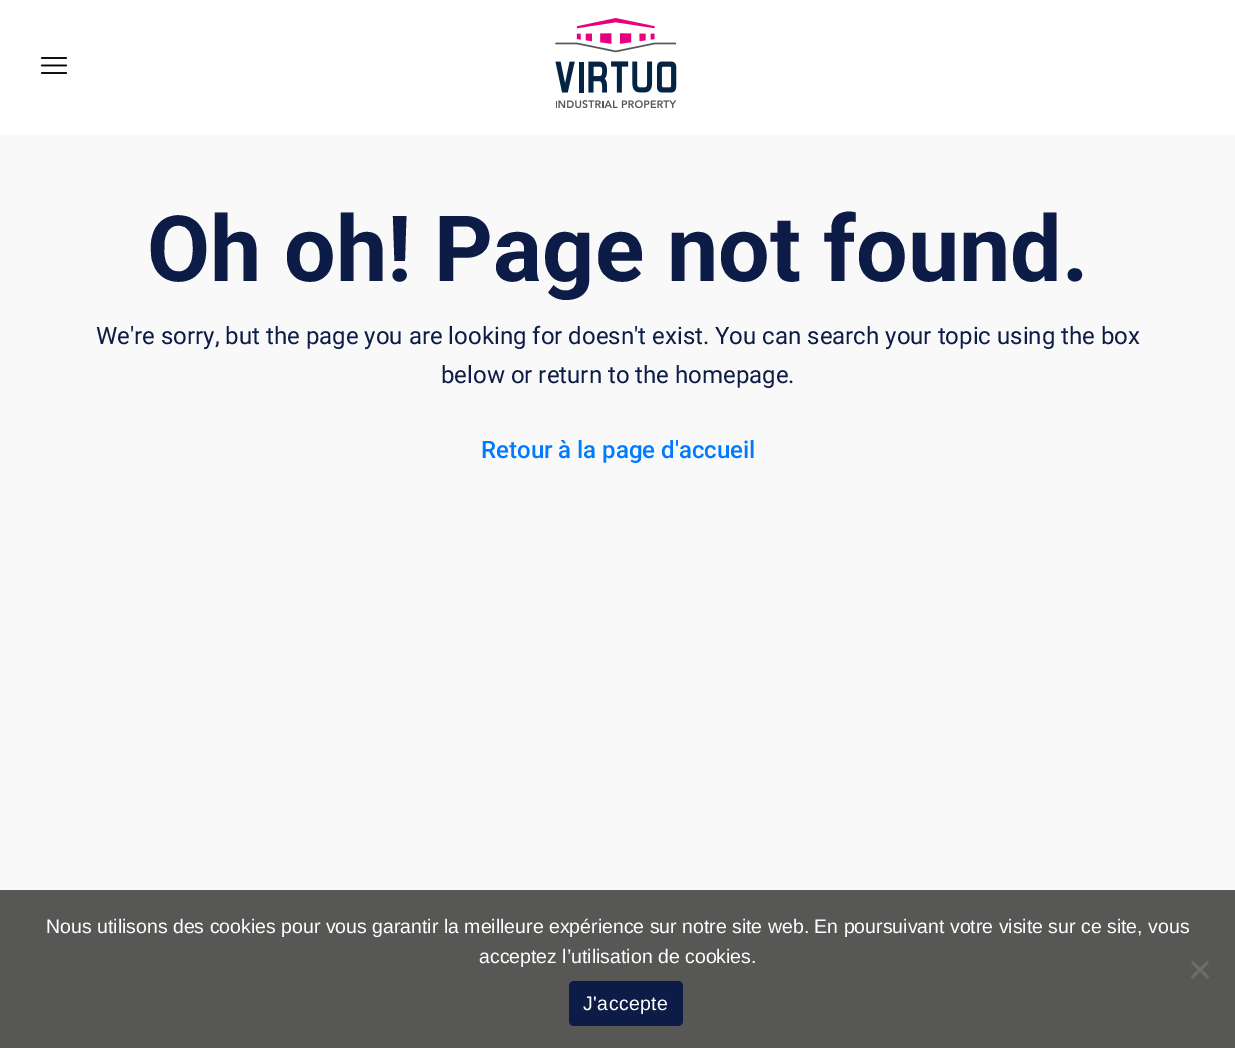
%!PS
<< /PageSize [1235 1048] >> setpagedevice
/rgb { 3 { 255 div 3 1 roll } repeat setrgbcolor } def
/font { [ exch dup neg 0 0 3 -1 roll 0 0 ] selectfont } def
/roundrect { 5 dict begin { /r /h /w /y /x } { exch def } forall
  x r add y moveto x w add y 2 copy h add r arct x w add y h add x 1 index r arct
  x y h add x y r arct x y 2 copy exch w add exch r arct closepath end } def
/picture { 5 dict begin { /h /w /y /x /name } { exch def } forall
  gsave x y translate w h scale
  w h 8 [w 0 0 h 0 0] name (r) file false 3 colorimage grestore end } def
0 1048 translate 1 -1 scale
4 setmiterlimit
249 249 249 rgb
0 0 1235 1048 rectfill
255 255 255 rgb
0 0 1235 135 rectfill
(img/1.rgb) 40 57 28 17 picture
(img/2.rgb) 555 18 122 90 picture
87 87 86 rgb
0 890 1235 158 rectfill
108 108 107 rgb
1207 960.5 moveto 1209 963 lineto 1193 979 lineto 1191 976.5 lineto closepath fill
1191 963 moveto 1193 960.5 lineto 1209 976.5 lineto 1207 979 lineto closepath fill
12 28 71 rgb
569 981 114 45 5 roundrect fill
/Roboto-Bold 91.5 font
147 281 moveto (Oh oh! Page not found.) show
/Roboto-Regular 24 font
96 344 moveto (We're sorry, but the page you are looking for doesn't exist. You can search your topic using the box) show
441 383 moveto (below or return to the homepage.) show
/Roboto-Medium 24 font
0 123 255 rgb
481 458 moveto (Retour à la page d'accueil) show
/LiberationSans-Regular 19.5 font
255 255 255 rgb
46 933 moveto (Nous utilisons des cookies pour vous garantir la meilleure expérience sur notre site web. En poursuivant votre visite sur ce site, vous) show
479 963 moveto (acceptez l’utilisation de cookies.) show
583 1010 moveto 0.4 0 (J'accepte) ashow
showpage
